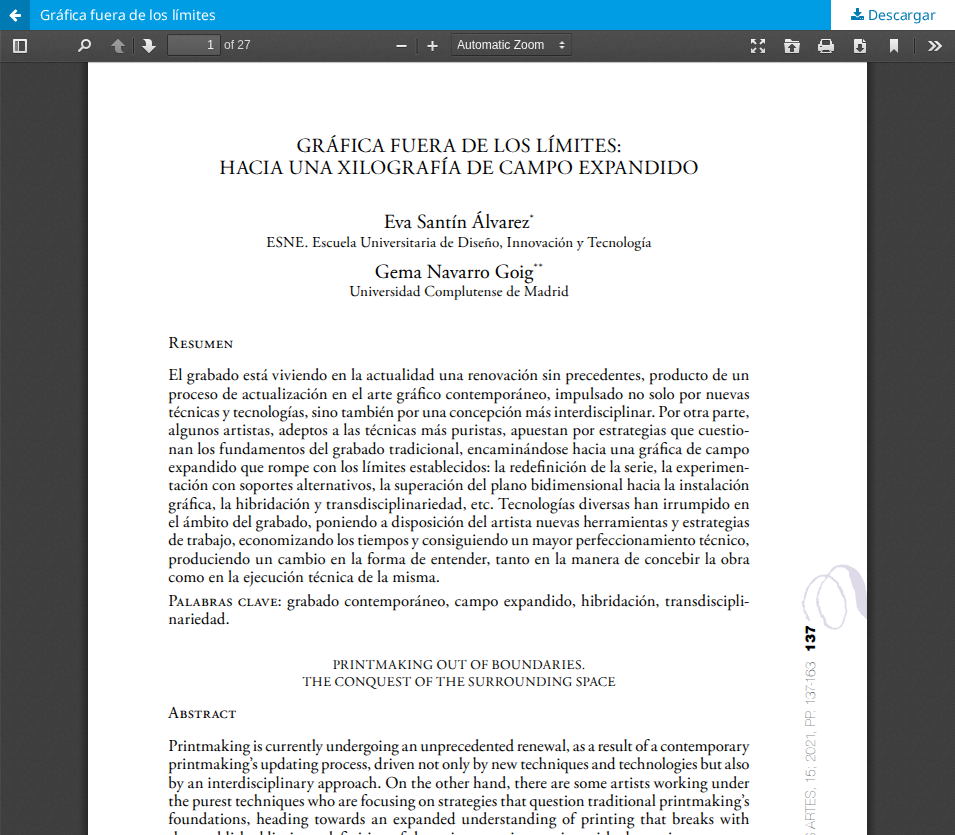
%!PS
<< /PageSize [955 835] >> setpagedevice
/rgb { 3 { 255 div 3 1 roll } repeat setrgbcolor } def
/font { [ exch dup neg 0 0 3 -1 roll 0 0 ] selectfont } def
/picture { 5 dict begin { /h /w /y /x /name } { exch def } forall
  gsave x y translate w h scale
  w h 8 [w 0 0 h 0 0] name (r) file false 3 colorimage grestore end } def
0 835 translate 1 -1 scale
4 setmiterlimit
255 255 255 rgb
0 0 955 835 rectfill
0 157 229 rgb
30 0 801 30 rectfill
0 122 178 rgb
0 0 30 30 rectfill
(img/1.rgb) 9 9 12 13 picture
(img/2.rgb) 851 8 13 12 picture
(img/3.rgb) 0 30 955 805 picture
/NotoSans-Regular 14 font
255 255 255 rgb
40 20 moveto (Gráfica fuera de los límites) show
0 122 178 rgb
868 20 moveto (Descargar) show
showpage
